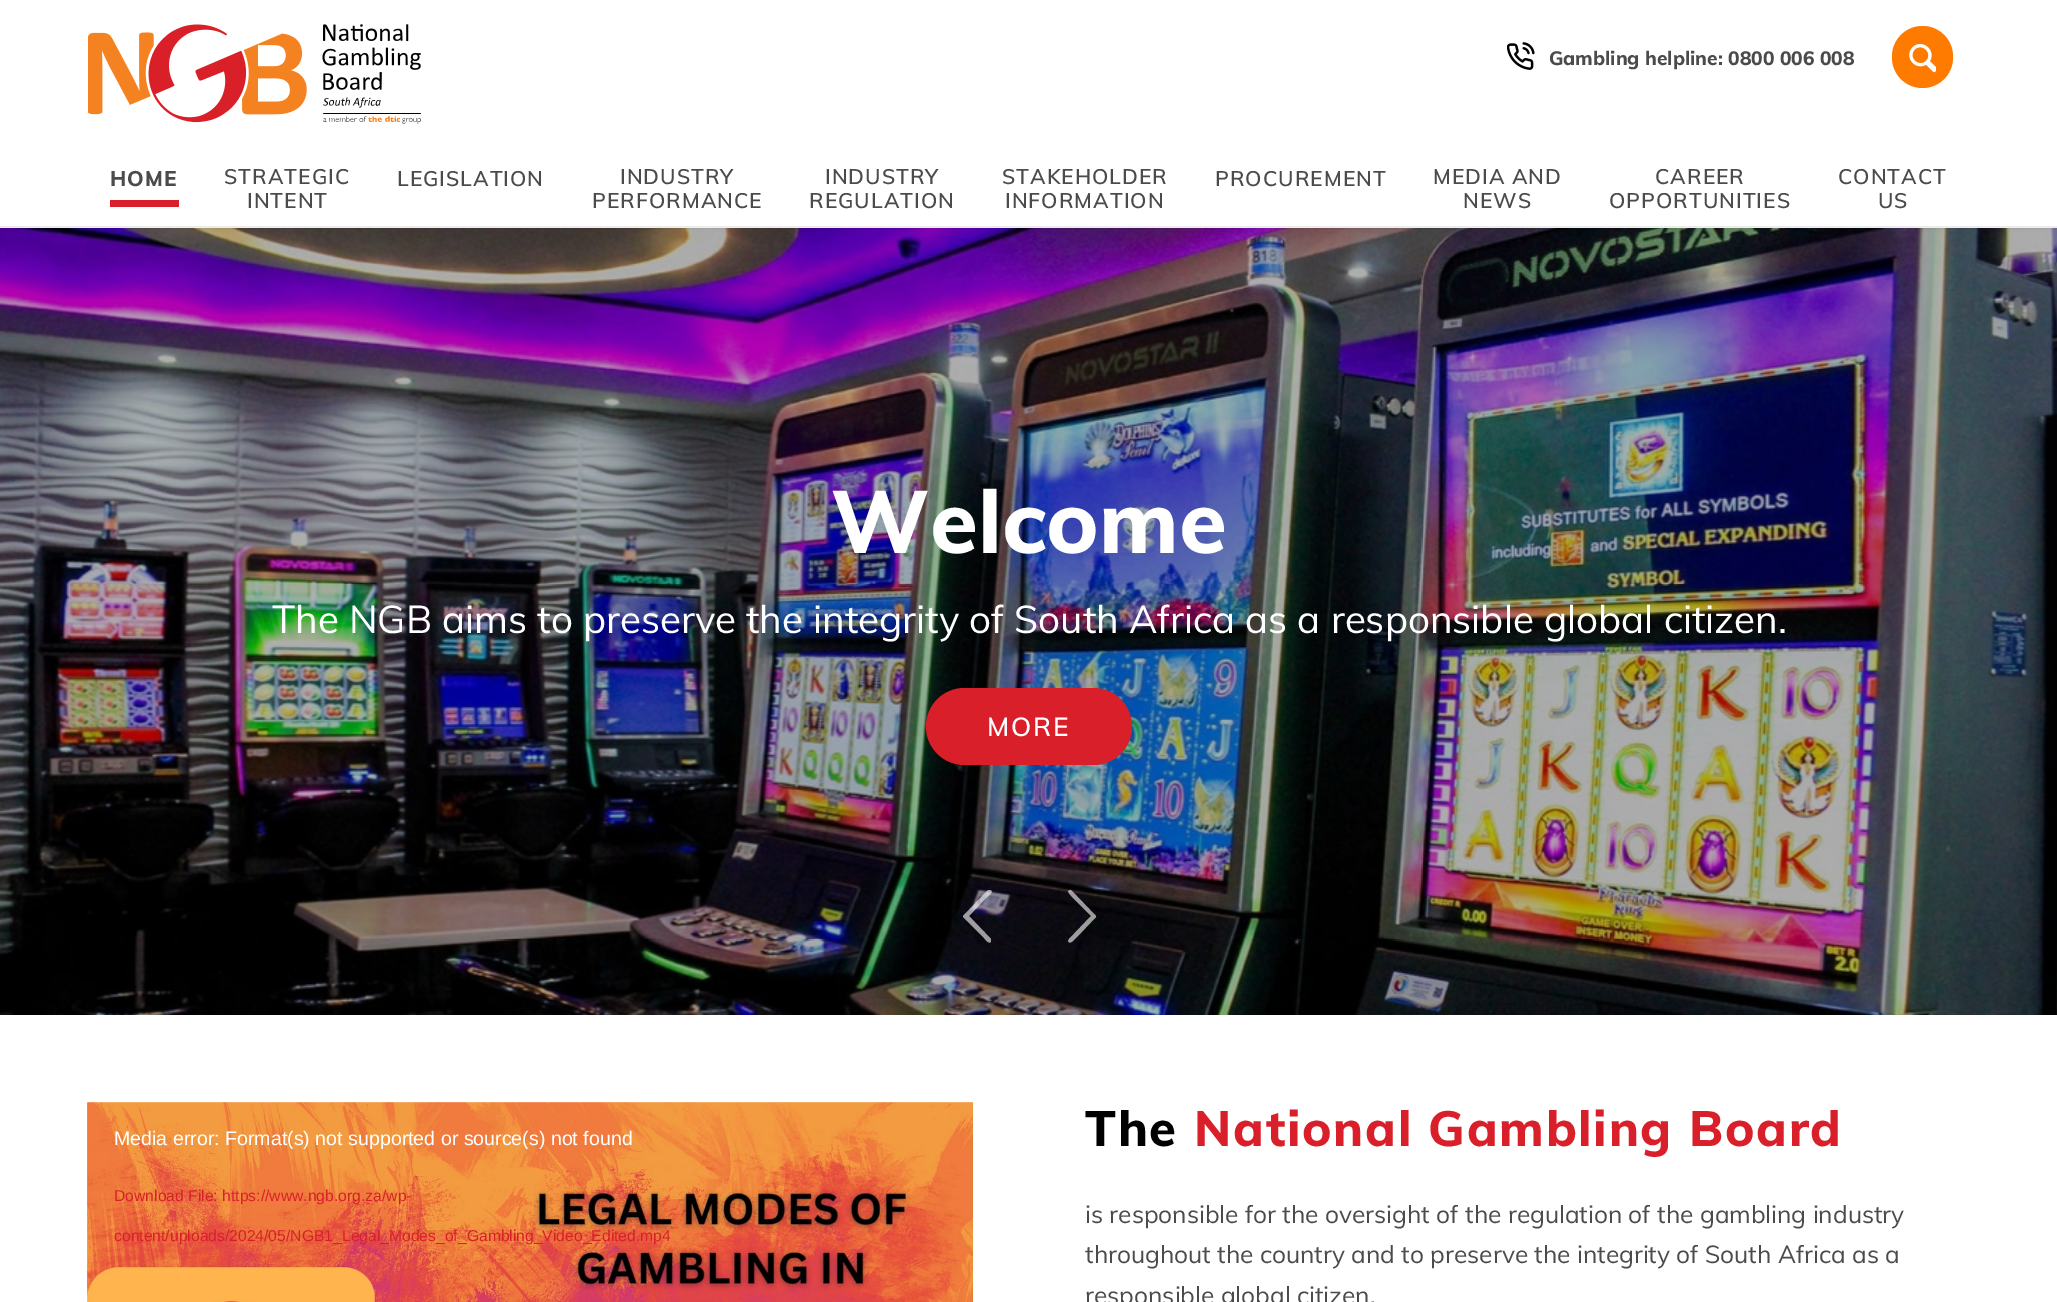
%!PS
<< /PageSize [2057 1302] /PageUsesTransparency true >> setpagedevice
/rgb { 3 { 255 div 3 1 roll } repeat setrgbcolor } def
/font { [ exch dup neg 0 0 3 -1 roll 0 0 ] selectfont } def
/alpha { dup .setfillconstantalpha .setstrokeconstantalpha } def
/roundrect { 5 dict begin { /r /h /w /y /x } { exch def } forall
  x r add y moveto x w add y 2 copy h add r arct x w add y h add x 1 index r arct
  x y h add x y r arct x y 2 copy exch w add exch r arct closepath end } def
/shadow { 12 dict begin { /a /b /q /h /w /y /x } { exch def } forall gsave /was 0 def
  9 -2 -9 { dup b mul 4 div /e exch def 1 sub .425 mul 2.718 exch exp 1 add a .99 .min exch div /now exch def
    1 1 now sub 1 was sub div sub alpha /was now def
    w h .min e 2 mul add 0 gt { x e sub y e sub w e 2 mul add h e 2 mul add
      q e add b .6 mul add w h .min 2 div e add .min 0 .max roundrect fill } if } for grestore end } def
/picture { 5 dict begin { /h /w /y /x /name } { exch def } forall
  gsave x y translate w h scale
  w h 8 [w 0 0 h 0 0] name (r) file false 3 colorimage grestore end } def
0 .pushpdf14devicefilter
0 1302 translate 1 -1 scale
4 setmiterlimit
255 255 255 rgb
0 0 2057 1302 rectfill
(img/4.rgb) 0 228 2057 787 picture
0 0 0 rgb
-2 -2 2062 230 0 2 0.1 shadow
255 255 255 rgb
0 0 2057 226 rectfill
(img/1.rgb) 1507 42 28 28 picture
255 123 0 rgb
1892 26 61 62 30.5 roundrect fill
(img/2.rgb) 1909 44 27 29 picture
(img/3.rgb) 88 24 333 100 picture
217 32 42 rgb
110 200 69 7 rectfill
926 688 206 77 38.5 roundrect fill
0.6 alpha
255 255 255 rgb
991 939 moveto 991 941 lineto 990 946 984 938 984 938 curveto 963 917 lineto 963 916 lineto 988 890 lineto 990 890 lineto 995 891 988 896 987 897 curveto 969 916 lineto closepath fill
1069 939 moveto 1091 916 lineto 1072 897 lineto 1072 896 1065 891 1070 890 curveto 1071 890 lineto 1096 916 lineto 1096 917 lineto 1076 938 lineto 1075 938 1070 946 1068 941 curveto closepath fill
1 alpha
(img/5.rgb) 87 1102 886 200 picture
(img/6.rgb) 87 1102 885 200 picture
(img/7.rgb) 87 1102 886 200 picture
/Muli-ExtraBold 19.25 font
75 75 75 rgb
1549 65 moveto (Gambling helpline: 0800 006 008) show
/Muli-ExtraBold 21 font
110 186 moveto 1 0 (HOME) ashow
/Muli-SemiBold 21 font
224 184 moveto 1 0 (STRATEGIC) ashow
247 208 moveto 1 0 (INTENT) ashow
397 186 moveto 1 0 (LEGISLATION) ashow
620 184 moveto 1 0 (INDUSTRY) ashow
592 208 moveto 1 0 (PERFORMANCE) ashow
825 184 moveto 1 0 (INDUSTRY) ashow
809 208 moveto 1 0 (REGULATION) ashow
1002 184 moveto 1 0 (STAKEHOLDER) ashow
1005 208 moveto 1 0 (INFORMATION) ashow
1215 186 moveto 1 0 (PROCUREMENT) ashow
1433 184 moveto 1 0 (MEDIA AND) ashow
1463 208 moveto 1 0 (NEWS) ashow
1655 184 moveto 1 0 (CAREER) ashow
1609 208 moveto 1 0 (OPPORTUNITIES) ashow
1838 184 moveto 1 0 (CONTACT) ashow
1878 208 moveto 1 0 (US) ashow
/Muli-ExtraBold 87.5 font
255 255 255 rgb
831 553 moveto (Welcome) show
/Muli-Regular 38.5 font
272 633 moveto (The NGB aims to preserve the integrity of South Africa as a responsible global citizen.) show
/Muli-SemiBold 26 font
987 736 moveto 1.75 0 (MORE) ashow
/LiberationSans-Regular 19.6 font
114 1145 moveto (Media error: Format\(s\) not supported or source\(s\) not found) show
/LiberationSans-Regular 15.7 font
217 32 42 rgb
114 1201 moveto (Download File: https://www.ngb.org.za/wp-) show
114 1241 moveto (content/uploads/2024/05/NGB1_Legal_Modes_of_Gambling_Video_Edited.mp4) show
/Muli-ExtraBold 49 font
0 0 0 rgb
1085 1146 moveto 1.75 0 (The) ashow
217 32 42 rgb
1194 1146 moveto 1.75 0 (National Gambling Board) ashow
/Muli-Regular 24.5 font
75 75 75 rgb
[
  [(is responsible for the oversight of the regulation of the gambling industry) 1085 1223]
  [(throughout the country and to preserve the integrity of South Africa as a) 1085 1263]
  [(responsible global citizen.) 1085 1304]
] { aload pop moveto show } forall
.poppdf14devicefilter showpage
